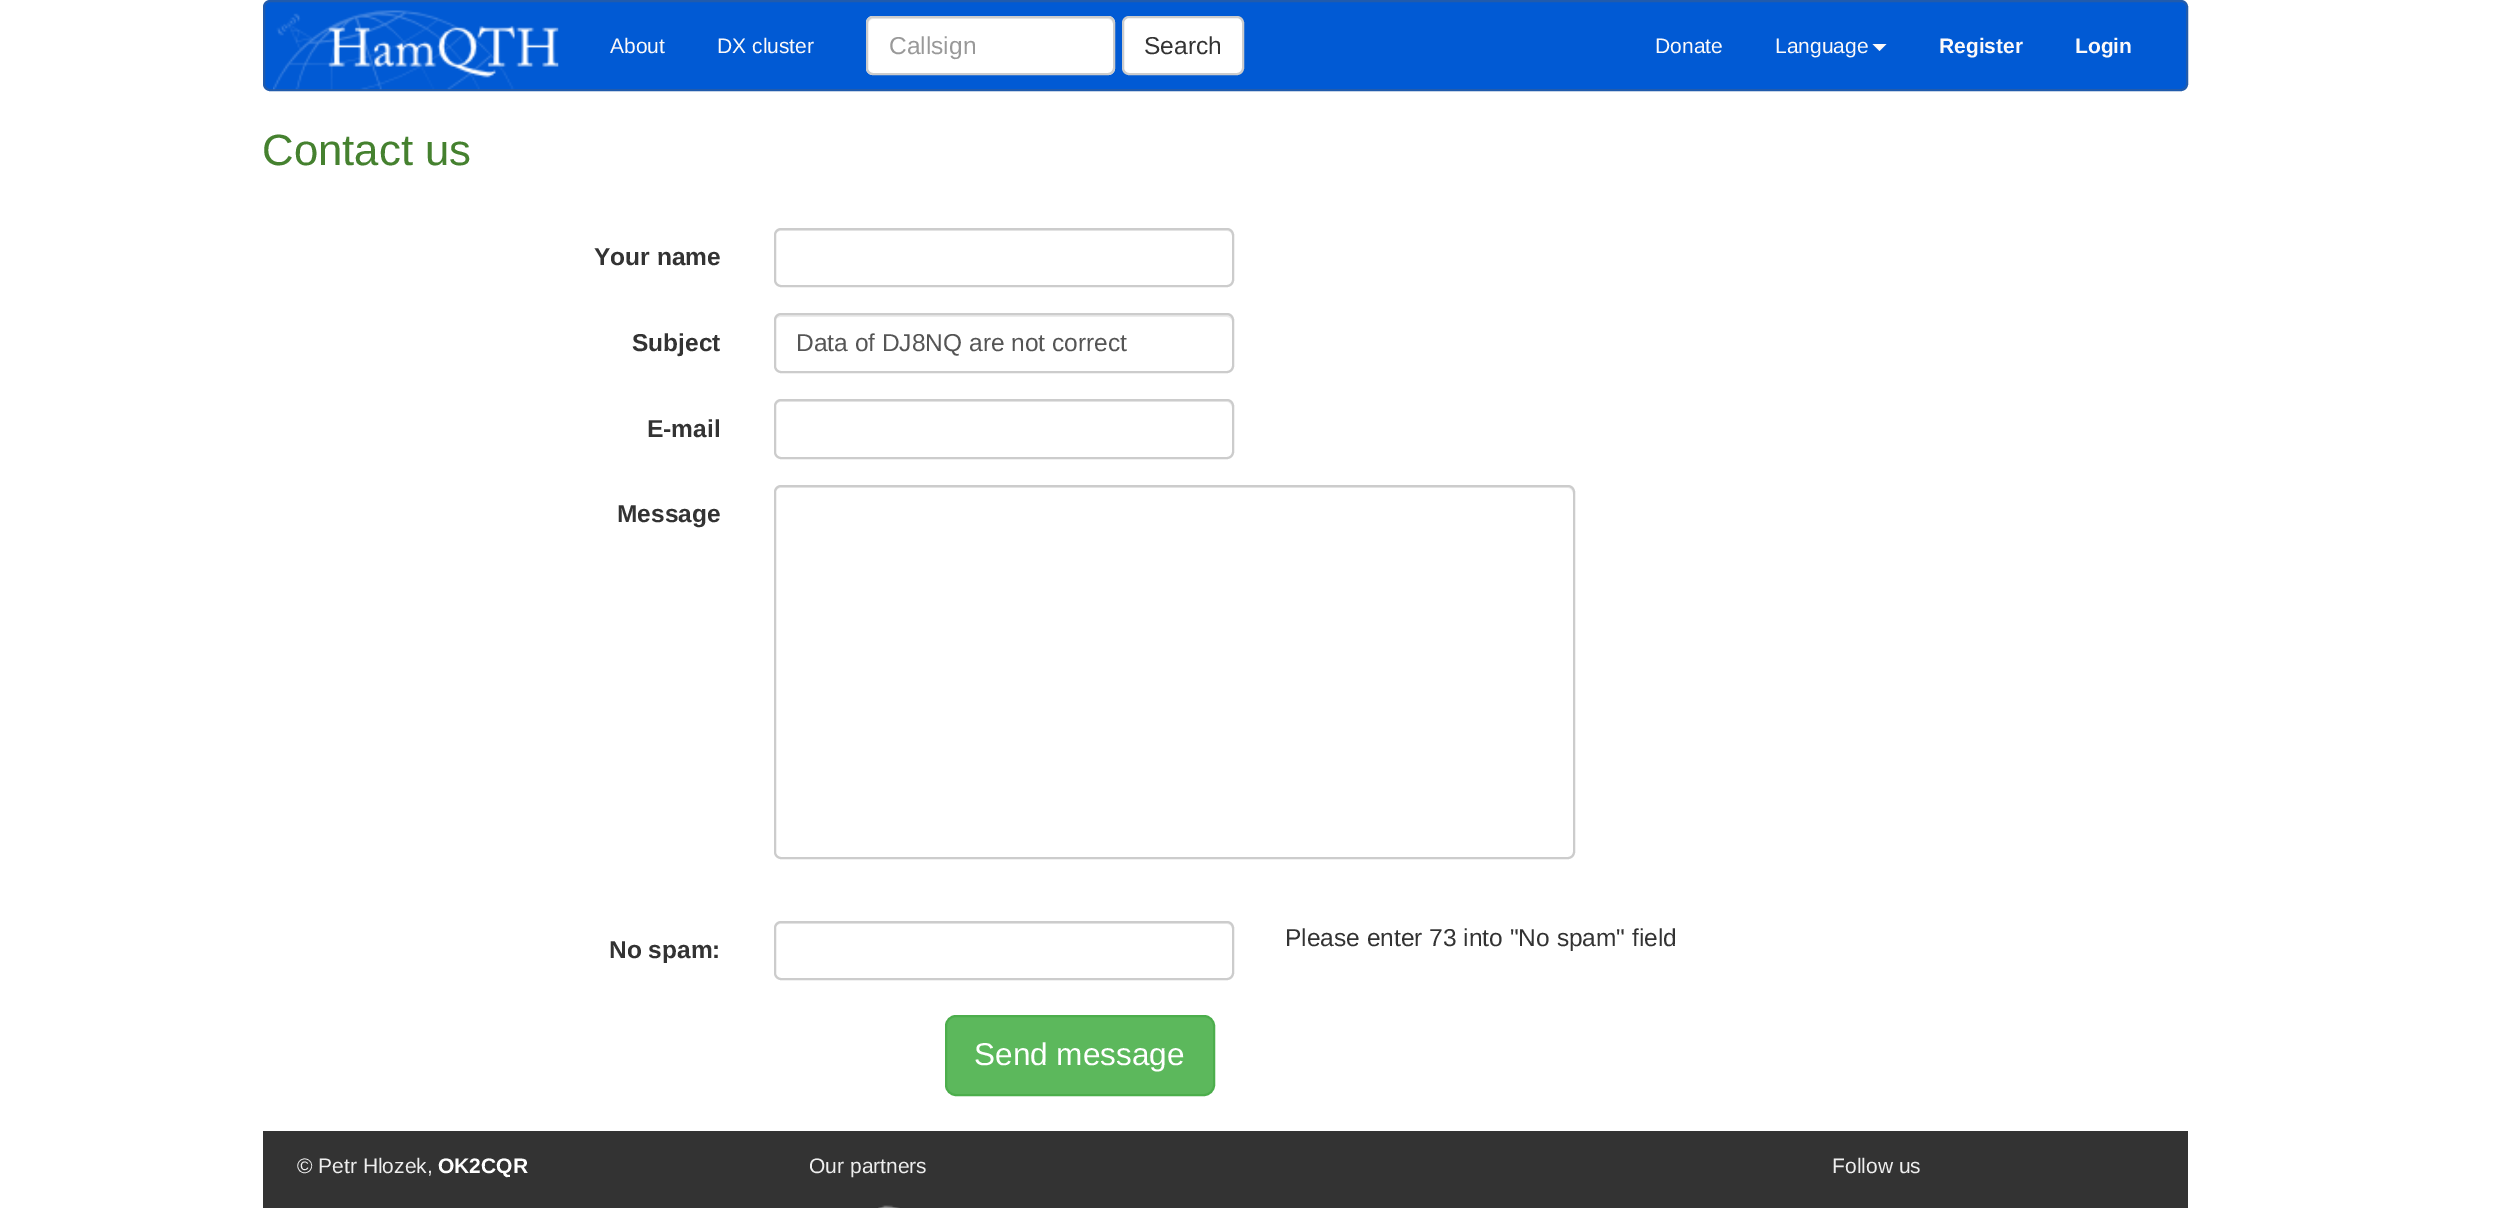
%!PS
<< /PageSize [2518 1208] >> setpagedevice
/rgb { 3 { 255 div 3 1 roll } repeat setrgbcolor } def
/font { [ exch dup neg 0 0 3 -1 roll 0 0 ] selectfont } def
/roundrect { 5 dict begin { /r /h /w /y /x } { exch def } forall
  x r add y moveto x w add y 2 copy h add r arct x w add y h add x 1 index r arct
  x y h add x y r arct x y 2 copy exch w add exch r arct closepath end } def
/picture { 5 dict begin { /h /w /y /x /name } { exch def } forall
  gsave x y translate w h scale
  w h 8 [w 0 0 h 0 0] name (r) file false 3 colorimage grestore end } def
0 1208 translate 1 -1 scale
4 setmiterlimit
255 255 255 rgb
0 0 2518 1208 rectfill
1 90 212 rgb
264 1 1923 89 6 roundrect gsave fill grestore
33 91 172 rgb
2 setlinewidth
stroke
(img/1.rgb) 273 10 286 80 picture
255 255 255 rgb
866 16 249 59 7 roundrect fill
236 236 236 rgb
873 19 moveto 1108 19 lineto 1111 19 1113 22 1113 24 curveto 1113 23 lineto 1113 20 1111 18 1108 18 curveto 873 18 lineto 870 18 868 20 868 23 curveto 868 24 lineto 868 22 870 19 873 19 curveto closepath fill
204 204 204 rgb
867 17 247 57 6 roundrect stroke
255 255 255 rgb
1123 17 120 57 6 roundrect gsave fill grestore
204 204 204 rgb
stroke
252 249 249 rgb
1872.5 44 moveto 1886.5 44 lineto 1879.5 51 lineto closepath fill
236 236 236 rgb
780 231 moveto 1227 231 lineto 1230 231 1232 233 1232 236 curveto 1232 233 1231 229 1227 229 curveto 780 229 lineto 776 229 775 233 775 236 curveto 775 233 778 231 780 231 curveto closepath fill
204 204 204 rgb
775 229 458 57 6 roundrect stroke
236 236 236 rgb
780 317 moveto 1227 317 lineto 1230 317 1232 319 1232 322 curveto 1232 319 1231 315 1227 315 curveto 780 315 lineto 776 315 775 319 775 322 curveto 775 319 778 317 780 317 curveto closepath fill
204 204 204 rgb
775 314 458 58 6 roundrect stroke
236 236 236 rgb
780 402 moveto 1227 402 lineto 1230 402 1232 405 1232 408 curveto 1232 405 1231 401 1227 401 curveto 780 401 lineto 776 401 775 405 775 408 curveto 775 405 778 402 780 402 curveto closepath fill
204 204 204 rgb
775 400 458 58 6 roundrect stroke
236 236 236 rgb
780 488 moveto 1568 488 lineto 1571 488 1573 491 1573 494 curveto 1573 491 1572 487 1568 487 curveto 780 487 lineto 776 487 775 491 775 494 curveto 775 491 778 488 780 488 curveto closepath fill
204 204 204 rgb
775 486 799 372 6 roundrect stroke
236 236 236 rgb
780 924 moveto 1227 924 lineto 1230 924 1232 926 1232 929 curveto 1232 926 1231 922 1227 922 curveto 780 922 lineto 776 922 775 926 775 929 curveto 775 926 778 924 780 924 curveto closepath fill
204 204 204 rgb
775 922 458 57 6 roundrect stroke
92 184 92 rgb
946 1016 268 79 10 roundrect gsave fill grestore
76 174 76 rgb
stroke
51 51 51 rgb
263 1131 1925 77 rectfill
(img/2.rgb) 878 1205 22 3 picture
/LiberationSans-Regular 21 font
252 249 249 rgb
610 53 moveto (About) show
717 53 moveto (DX cluster) show
/LiberationSans-Regular 24.5 font
153 153 153 rgb
889 54 moveto (Callsign) show
51 51 51 rgb
1144 54 moveto (Search) show
/LiberationSans-Regular 21 font
252 249 249 rgb
1655 53 moveto (Donate) show
1775 53 moveto (Language) show
/LiberationSans-Bold 21 font
1939 53 moveto (Register) show
2075 53 moveto (Login) show
/LiberationSans-Regular 43.75 font
69 129 47 rgb
262 165 moveto (Contact us) show
/LiberationSans-Bold 24.5 font
51 51 51 rgb
594 265 moveto (Your name) show
632 351 moveto (Subject) show
/LiberationSans-Regular 24.5 font
85 85 85 rgb
796 351 moveto (Data of DJ8NQ are not correct) show
/LiberationSans-Bold 24.5 font
51 51 51 rgb
[
  [(E-mail) 647 437]
  [(Message) 617 522]
  [(No spam:) 609 958]
] { aload pop moveto show } forall
/LiberationSans-Regular 24.5 font
1285 946 moveto (Please enter 73 into "No spam" field) show
/LiberationSans-Regular 31.5 font
255 255 255 rgb
974 1065 moveto (Send message) show
/LiberationSans-Regular 21 font
238 238 238 rgb
297 1173 moveto (© Petr Hlozek,) show
/LiberationSans-Bold 21 font
255 255 255 rgb
438 1173 moveto (OK2CQR) show
/LiberationSans-Regular 21 font
238 238 238 rgb
809 1173 moveto (Our partners) show
1832 1173 moveto (Follow us) show
showpage
